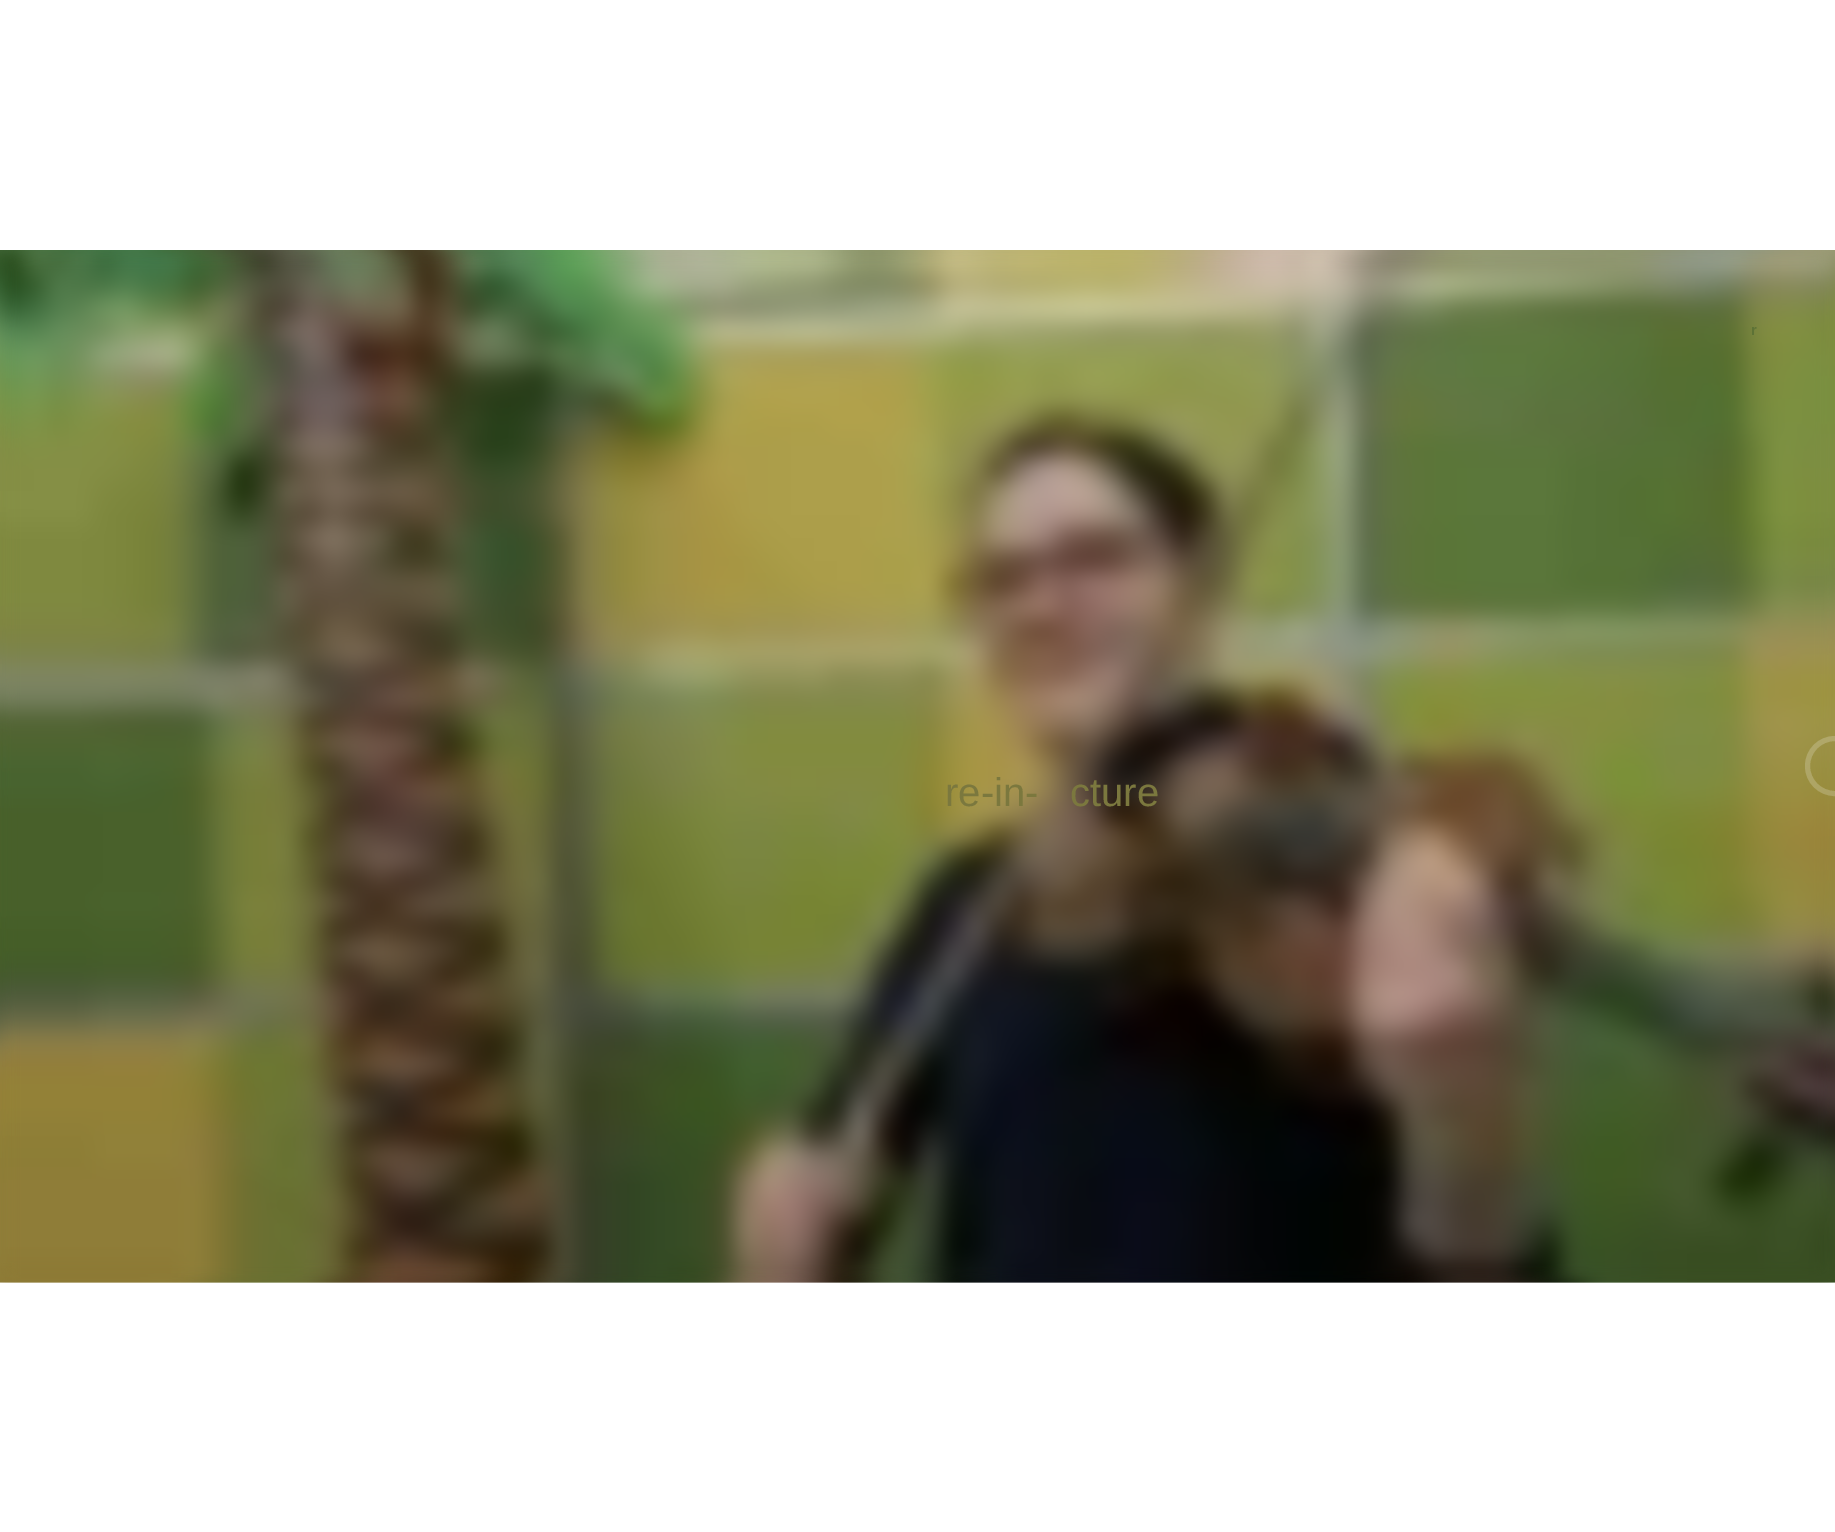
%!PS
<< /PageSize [1835 1532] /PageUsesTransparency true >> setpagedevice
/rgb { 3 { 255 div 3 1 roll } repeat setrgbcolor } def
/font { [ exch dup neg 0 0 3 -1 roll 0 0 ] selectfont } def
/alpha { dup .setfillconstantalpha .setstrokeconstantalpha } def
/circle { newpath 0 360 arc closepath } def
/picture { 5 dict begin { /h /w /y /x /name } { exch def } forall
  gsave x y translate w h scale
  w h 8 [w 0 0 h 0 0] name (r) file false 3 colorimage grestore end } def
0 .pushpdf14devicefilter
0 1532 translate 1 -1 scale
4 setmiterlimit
255 255 255 rgb
0 0 1835 1532 rectfill
(img/1.rgb) 0 250 1835 1033 picture
(img/2.rgb) 0 250 1835 1033 picture
0.2 alpha
5 setlinewidth
1835 766 27.5 circle stroke
/LiberationSans-Bold 15 font
1 alpha
93 114 54 rgb
1751 335 moveto (r) show
/LiberationSans-Regular 40 font
123 120 62 rgb
945 806 moveto (re-in-) show
1070 806 moveto (cture) show
.poppdf14devicefilter showpage
